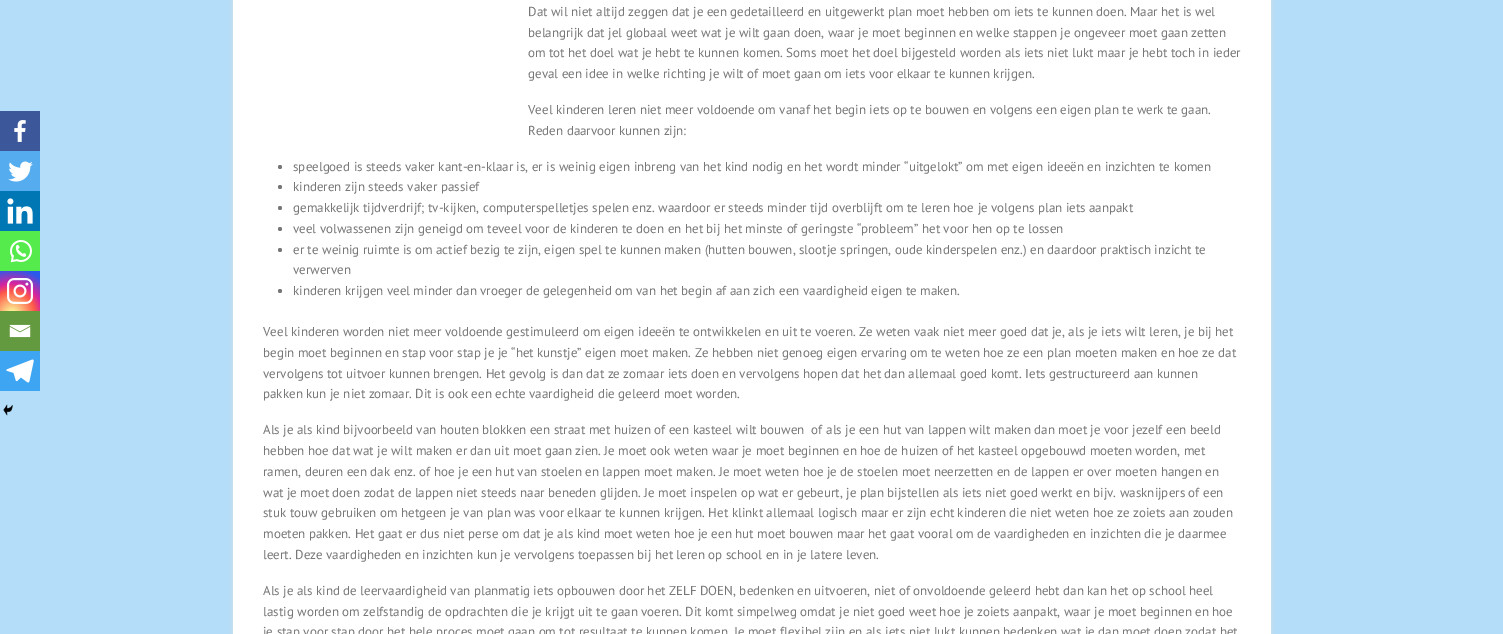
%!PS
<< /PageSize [1503 634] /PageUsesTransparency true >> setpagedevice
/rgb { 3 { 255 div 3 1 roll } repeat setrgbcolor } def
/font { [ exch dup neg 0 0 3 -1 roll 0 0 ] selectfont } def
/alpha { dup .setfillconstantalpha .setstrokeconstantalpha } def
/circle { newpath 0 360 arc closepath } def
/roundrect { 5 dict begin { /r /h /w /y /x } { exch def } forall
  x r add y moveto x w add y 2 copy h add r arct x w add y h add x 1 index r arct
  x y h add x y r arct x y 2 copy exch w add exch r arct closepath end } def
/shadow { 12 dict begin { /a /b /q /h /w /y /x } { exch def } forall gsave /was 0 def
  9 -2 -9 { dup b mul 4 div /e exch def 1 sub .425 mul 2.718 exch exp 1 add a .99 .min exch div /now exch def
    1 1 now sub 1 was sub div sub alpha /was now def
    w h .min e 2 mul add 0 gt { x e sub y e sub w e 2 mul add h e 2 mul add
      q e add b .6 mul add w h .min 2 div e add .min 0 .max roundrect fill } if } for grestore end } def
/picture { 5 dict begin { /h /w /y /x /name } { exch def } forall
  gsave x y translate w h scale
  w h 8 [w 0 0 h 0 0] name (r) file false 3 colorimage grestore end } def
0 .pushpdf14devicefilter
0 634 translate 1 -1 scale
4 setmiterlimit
179 221 249 rgb
0 0 1503 634 rectfill
221 221 221 rgb
233 -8 1038 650 0 2.5 1 shadow
255 255 255 rgb
233 0 1038 634 rectfill
60 88 154 rgb
0 111 40 40 rectfill
(img/1.rgb) 14 120 12 22 picture
85 172 238 rgb
0 151 40 40 rectfill
(img/2.rgb) 8 161 25 21 picture
0 119 181 rgb
0 191 40 40 rectfill
(img/3.rgb) 7 198 26 26 picture
85 235 76 rgb
0 231 40 40 rectfill
(img/4.rgb) 10 240 22 23 picture
gsave 0 271 moveto 40 271 lineto 40 311 lineto 0 311 lineto closepath clip newpath 12 314 translate 51 51 scale
<< /ShadingType 3 /ColorSpace /DeviceRGB /Coords [0 0 0 0 0 1] /Extend [true true] /Function << /FunctionType 3 /Domain [0 1] /Functions [<< /FunctionType 2 /Domain [0 1] /C0 [0.992 0.957 0.592] /C1 [0.992 0.957 0.592] /N 1 >> << /FunctionType 2 /Domain [0 1] /C0 [0.992 0.957 0.592] /C1 [0.992 0.349 0.286] /N 1 >> << /FunctionType 2 /Domain [0 1] /C0 [0.992 0.349 0.286] /C1 [0.839 0.141 0.624] /N 1 >> << /FunctionType 2 /Domain [0 1] /C0 [0.839 0.141 0.624] /C1 [0.157 0.353 0.922] /N 1 >> << /FunctionType 2 /Domain [0 1] /C0 [0.157 0.353 0.922] /C1 [0.157 0.353 0.922] /N 1 >>] /Bounds [0.05 0.45 0.6 0.9] /Encode [0 1 0 1 0 1 0 1 0 1] >> >> shfill grestore
(img/5.rgb) 7 278 26 26 picture
100 154 63 rgb
0 311 40 40 rectfill
(img/6.rgb) 9 324 22 14 picture
61 165 241 rgb
0 351 40 40 rectfill
(img/7.rgb) 6 359 28 24 picture
(img/8.rgb) 3 404 10 12 picture
119 119 119 rgb
280 167 2 circle fill
280 187 2 circle fill
280 208 2 circle fill
280 229 2 circle fill
280 250 2 circle fill
280 291 2 circle fill
/PTSans-Regular 13 font
[
  [(Dat wil niet altijd zeggen dat je een gedetailleerd en uitgewerkt plan moet hebben om iets te kunnen doen. Maar het is wel) 528 16]
  [(belangrijk dat jel globaal weet wat je wilt gaan doen, waar je moet beginnen en welke stappen je ongeveer moet gaan zetten) 528 37]
  [(om tot het doel wat je hebt te kunnen komen. Soms moet het doel bijgesteld worden als iets niet lukt maar je hebt toch in ieder) 528 57]
  [(geval een idee in welke richting je wilt of moet gaan om iets voor elkaar te kunnen krijgen.) 528 78]
  [(Veel kinderen leren niet meer voldoende om vanaf het begin iets op te bouwen en volgens een eigen plan te werk te gaan.) 528 114]
  [(Reden daarvoor kunnen zijn:) 528 135]
  [(speelgoed is steeds vaker kant-en-klaar is, er is weinig eigen inbreng van het kind nodig en het wordt minder “uitgelokt” om met eigen ideeën en inzichten te komen) 293 171]
  [(kinderen zijn steeds vaker passief) 293 191]
  [(gemakkelijk tijdverdrijf; tv-kijken, computerspelletjes spelen enz. waardoor er steeds minder tijd overblijft om te leren hoe je volgens plan iets aanpakt) 293 212]
  [(veel volwassenen zijn geneigd om teveel voor de kinderen te doen en het bij het minste of geringste “probleem” het voor hen op te lossen) 293 233]
  [(er te weinig ruimte is om actief bezig te zijn, eigen spel te kunnen maken \(hutten bouwen, slootje springen, oude kinderspelen enz.\) en daardoor praktisch inzicht te) 293 254]
  [(verwerven) 293 274]
  [(kinderen krijgen veel minder dan vroeger de gelegenheid om van het begin af aan zich een vaardigheid eigen te maken.) 293 295]
  [(Veel kinderen worden niet meer voldoende gestimuleerd om eigen ideeën te ontwikkelen en uit te voeren. Ze weten vaak niet meer goed dat je, als je iets wilt leren, je bij het) 263 336]
  [(begin moet beginnen en stap voor stap je je “het kunstje” eigen moet maken. Ze hebben niet genoeg eigen ervaring om te weten hoe ze een plan moeten maken en hoe ze dat) 263 357]
  [(vervolgens tot uitvoer kunnen brengen. Het gevolg is dan dat ze zomaar iets doen en vervolgens hopen dat het dan allemaal goed komt. Iets gestructureerd aan kunnen) 263 378]
  [(pakken kun je niet zomaar. Dit is ook een echte vaardigheid die geleerd moet worden.) 263 398]
  [(Als je als kind bijvoorbeeld van houten blokken een straat met huizen of een kasteel wilt bouwen  of als je een hut van lappen wilt maken dan moet je voor jezelf een beeld) 263 434]
  [(hebben hoe dat wat je wilt maken er dan uit moet gaan zien. Je moet ook weten waar je moet beginnen en hoe de huizen of het kasteel opgebouwd moeten worden, met) 263 455]
  [(ramen, deuren een dak enz. of hoe je een hut van stoelen en lappen moet maken. Je moet weten hoe je de stoelen moet neerzetten en de lappen er over moeten hangen en) 263 476]
  [(wat je moet doen zodat de lappen niet steeds naar beneden glijden. Je moet inspelen op wat er gebeurt, je plan bijstellen als iets niet goed werkt en bijv. wasknijpers of een) 263 497]
  [(stuk touw gebruiken om hetgeen je van plan was voor elkaar te kunnen krijgen. Het klinkt allemaal logisch maar er zijn echt kinderen die niet weten hoe ze zoiets aan zouden) 263 517]
  [(moeten pakken. Het gaat er dus niet perse om dat je als kind moet weten hoe je een hut moet bouwen maar het gaat vooral om de vaardigheden en inzichten die je daarmee) 263 538]
  [(leert. Deze vaardigheden en inzichten kun je vervolgens toepassen bij het leren op school en in je latere leven.) 263 559]
  [(Als je als kind de leervaardigheid van planmatig iets opbouwen door het ZELF DOEN, bedenken en uitvoeren, niet of onvoldoende geleerd hebt dan kan het op school heel) 263 595]
  [(lastig worden om zelfstandig de opdrachten die je krijgt uit te gaan voeren. Dit komt simpelweg omdat je niet goed weet hoe je zoiets aanpakt, waar je moet beginnen en hoe) 263 616]
  [(je stap voor stap door het hele proces moet gaan om tot resultaat te kunnen komen. Je moet flexibel zijn en als iets niet lukt kunnen bedenken wat je dan moet doen zodat het) 263 636]
] { aload pop moveto show } forall
.poppdf14devicefilter showpage
